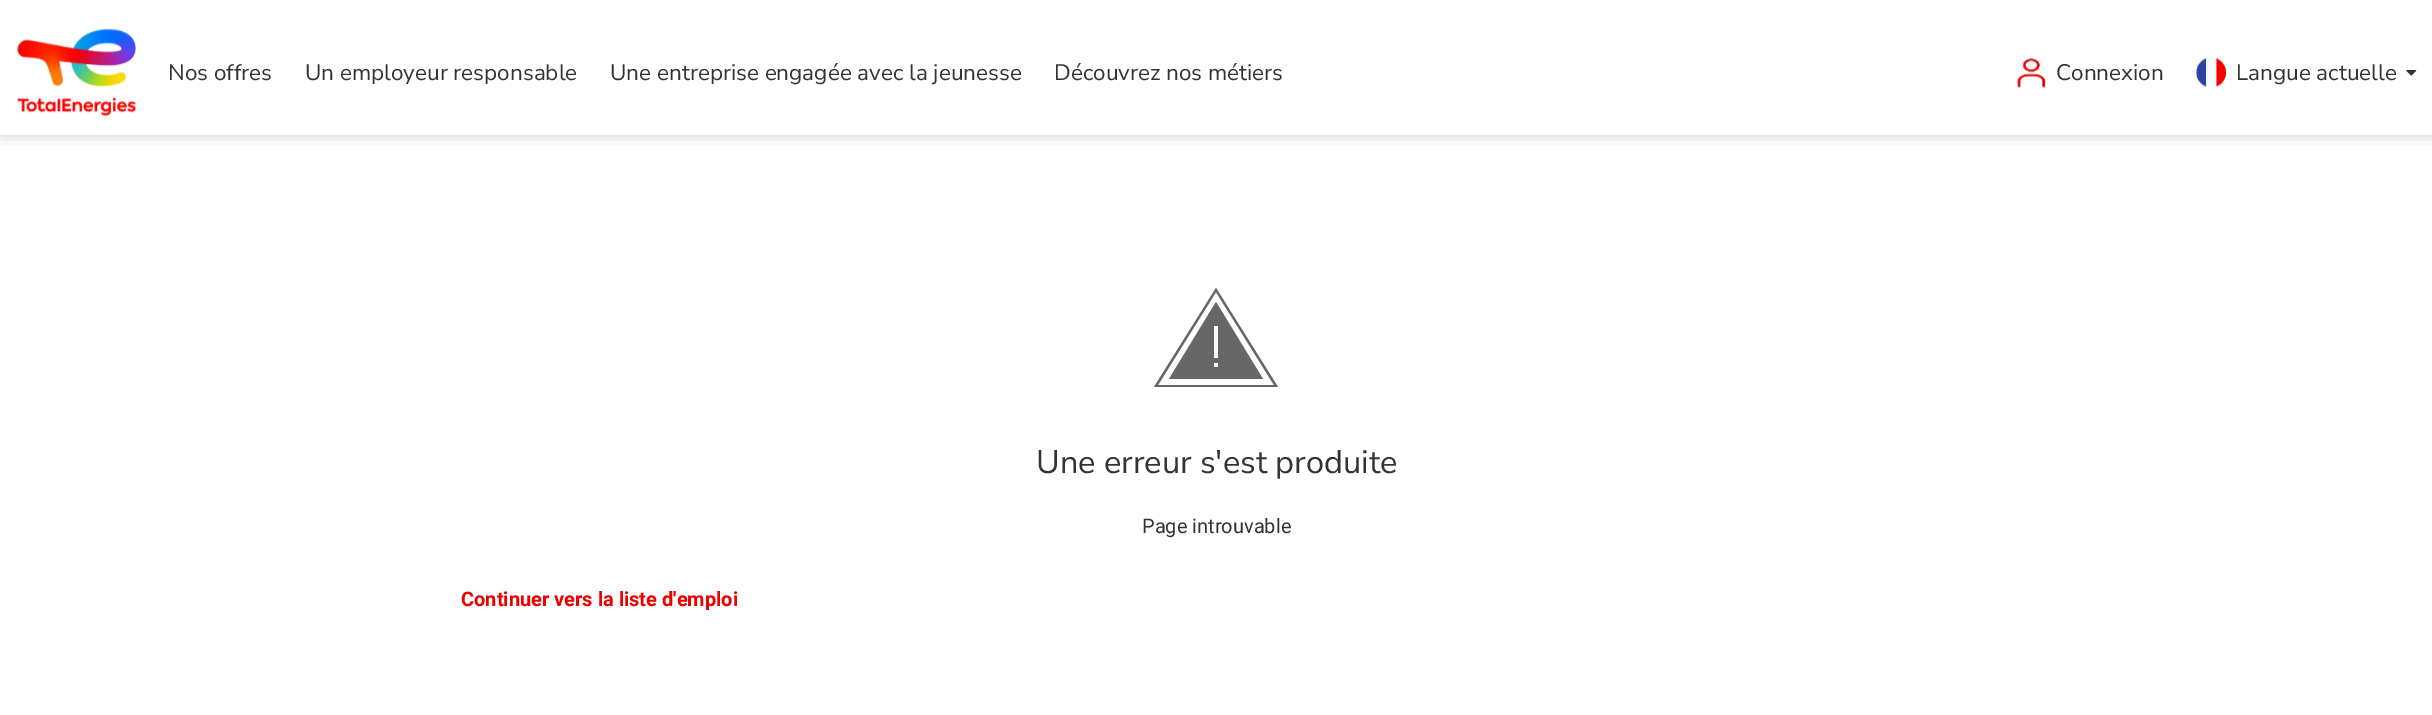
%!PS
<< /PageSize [2432 715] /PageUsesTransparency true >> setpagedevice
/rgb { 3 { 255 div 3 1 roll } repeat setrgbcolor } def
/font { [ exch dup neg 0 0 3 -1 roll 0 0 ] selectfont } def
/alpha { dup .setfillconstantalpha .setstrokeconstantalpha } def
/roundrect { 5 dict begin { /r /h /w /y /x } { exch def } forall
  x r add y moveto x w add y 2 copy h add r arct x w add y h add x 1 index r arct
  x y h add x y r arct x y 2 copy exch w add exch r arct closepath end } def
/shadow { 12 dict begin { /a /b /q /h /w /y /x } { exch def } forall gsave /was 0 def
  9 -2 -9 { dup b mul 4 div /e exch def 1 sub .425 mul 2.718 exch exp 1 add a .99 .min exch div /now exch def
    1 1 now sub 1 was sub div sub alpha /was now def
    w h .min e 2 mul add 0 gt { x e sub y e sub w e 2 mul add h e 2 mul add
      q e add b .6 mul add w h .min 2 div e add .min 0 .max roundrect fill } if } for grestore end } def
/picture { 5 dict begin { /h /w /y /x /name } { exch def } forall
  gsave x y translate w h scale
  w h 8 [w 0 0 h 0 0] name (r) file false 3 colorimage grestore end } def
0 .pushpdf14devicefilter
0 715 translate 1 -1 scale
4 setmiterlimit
255 255 255 rgb
0 0 2432 715 rectfill
gsave
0 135 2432 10 rectclip
0 0 0 rgb
0 0 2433 135 0 7.5 0.2 shadow
grestore
(img/1.rgb) 17 28 119 89 picture
(img/2.rgb) 2017 58 29 30 picture
(img/3.rgb) 2196 57 30 30 picture
(img/4.rgb) 2406 70 11 6 picture
102 102 102 rgb
1216 288 moveto 1278 387 lineto 1154 387 lineto closepath 1216 292 moveto 1158 385 lineto 1274 385 lineto closepath 1216 302 moveto 1263 379 lineto 1169 379 lineto closepath 1218 363 moveto 1214 363 lineto 1214 367 lineto 1218 367 lineto closepath 1218 326 moveto 1214 326 lineto 1214 358 lineto 1218 358 lineto closepath fill
/NunitoSans-Regular 22.5 font
51 51 51 rgb
[
  [(Nos offres) 168 80]
  [(Un employeur responsable) 305 80]
  [(Une entreprise engagée avec la jeunesse) 610 80]
  [(Découvrez nos métiers) 1054 80]
  [(Connexion) 2056 80]
  [(Langue actuelle) 2236 80]
] { aload pop moveto show } forall
/NunitoSans-Regular 32.5 font
1036 473 moveto (Une erreur s'est produite) show
/Roboto-Regular 20 font
1142 533 moveto (Page introuvable) show
/Roboto-Bold 20 font
237 0 0 rgb
461 606 moveto (Continuer vers la liste d'emploi) show
.poppdf14devicefilter showpage
